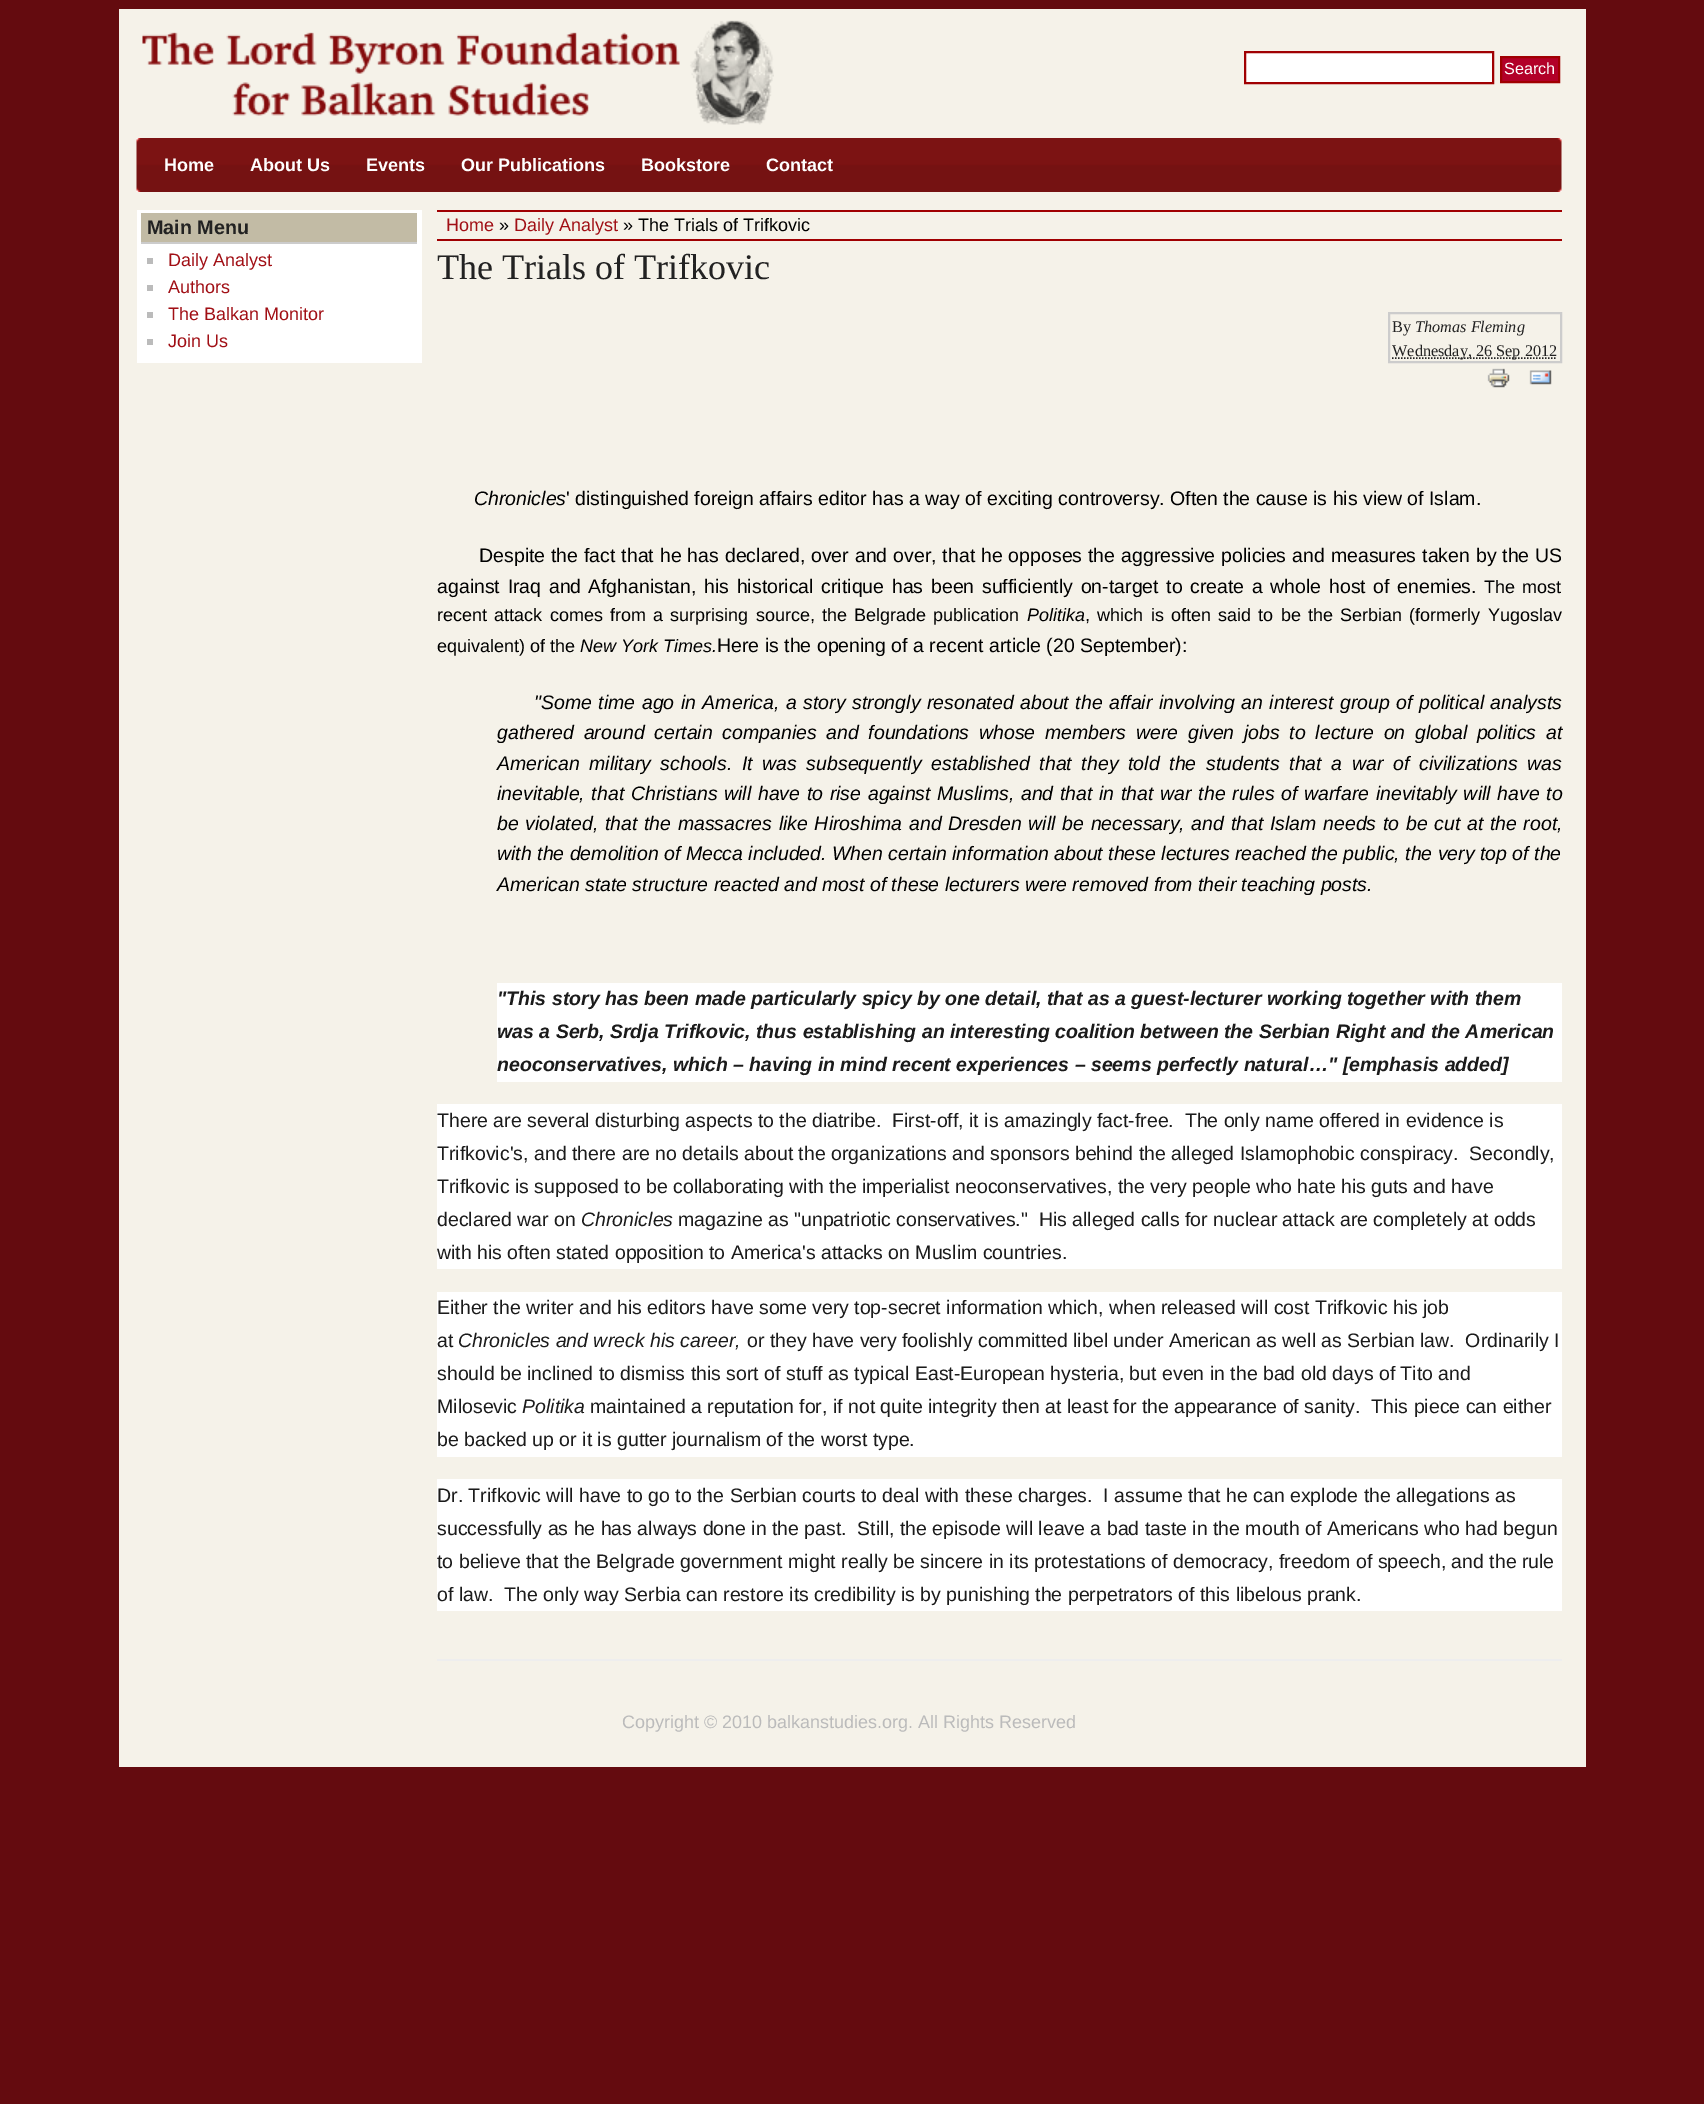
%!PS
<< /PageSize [1704 2104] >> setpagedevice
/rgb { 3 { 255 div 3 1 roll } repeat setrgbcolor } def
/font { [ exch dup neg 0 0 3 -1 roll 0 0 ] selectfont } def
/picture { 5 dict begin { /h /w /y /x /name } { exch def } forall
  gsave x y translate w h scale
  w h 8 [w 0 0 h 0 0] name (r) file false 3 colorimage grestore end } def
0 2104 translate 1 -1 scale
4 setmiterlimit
100 11 15 rgb
0 0 1704 2104 rectfill
245 242 233 rgb
119 9 1467 1758 rectfill
(img/1.rgb) 142 20 632 105 picture
255 255 255 rgb
1245 52 moveto 1493 52 lineto 1493 83 lineto 1245 83 lineto closepath gsave fill grestore
160 0 2 rgb
2 setlinewidth
stroke
178 0 40 rgb
1501 57 moveto 1559 57 lineto 1559 82 lineto 1501 82 lineto closepath gsave fill grestore
160 0 2 rgb
stroke
(img/2.rgb) 136 138 1426 54 picture
[
  [137 210 285 153 255 255 255]
  [141 213 276 29 194 187 165]
  [141 242 276 2 204 204 204]
  [147 258 6 6 187 187 187]
  [147 285 6 6 187 187 187]
  [147 312 6 6 187 187 187]
  [147 339 6 6 187 187 187]
  [437 210 1125 2 160 0 2]
  [437 239 1125 2 160 0 2]
  [437 1659 1125 2 238 238 238]
] { aload pop rgb rectfill } forall
204 204 204 rgb
1389 313 172 49 rectstroke
34 34 34 rgb
1.5 setlinewidth
[1.5 1.5] 0 setdash
1392 358 moveto 1557 358 lineto stroke
(img/3.rgb) 1487 368 23 20 picture
(img/4.rgb) 1529 370 23 15 picture
[
  [497 983 1065 99 255 255 255]
  [437 1104 1125 165 255 255 255]
  [437 1292 1125 165 255 255 255]
  [437 1479 1125 132 255 255 255]
] { aload pop rgb rectfill } forall
/LiberationSans-Regular 16.25 font
1504 74 moveto (Search) show
/LiberationSans-Bold 18 font
[
  [(Home) 164 171]
  [(About Us) 250 171]
  [(Events) 366 171]
  [(Our Publications) 461 171]
  [(Bookstore) 641 171]
  [(Contact) 766 171]
] { aload pop moveto show } forall
/LiberationSans-Bold 19.75 font
34 34 34 rgb
147 234 moveto (Main Menu) show
/LiberationSans-Regular 18 font
161 15 21 rgb
[
  [(Daily Analyst) 168 266]
  [(Authors) 168 293]
  [(The Balkan Monitor) 168 320]
  [(Join Us) 168 347]
  [(Home) 446 231]
] { aload pop moveto show } forall
0 0 0 rgb
499 231 moveto (») show
161 15 21 rgb
514 231 moveto (Daily Analyst) show
0 0 0 rgb
623 231 moveto (» The Trials of Trifkovic) show
/LiberationSerif-Regular 36 font
34 34 34 rgb
437 279 moveto (The Trials of Trifkovic) show
/LiberationSerif-Regular 16.25 font
1392 332 moveto (By) show
/LiberationSerif-Italic 16.25 font
1415 332 moveto (Thomas Fleming) show
/LiberationSerif-Regular 16.25 font
1392 356 moveto (Wednesday, 26 Sep 2012) show
/LiberationSans-Italic 19.5 font
0 0 0 rgb
474 505 moveto (Chronicles) show
/LiberationSans-Regular 19.5 font
566 505 moveto (' distinguished foreign affairs editor has a way of exciting controversy. Often the cause is his view of Islam.) show
479 562 moveto (Despite) show
551 562 moveto 0.5 0 32 (the fact that he has declared, over and over, that he opposes the) widthshow
1121 562 moveto 0.5 0 32 (aggressive policies and measures taken by the US) widthshow
437 593 moveto 2.25 0 32 (against Iraq and) widthshow
588 593 moveto 2.25 0 32 (Afghanistan, his historical critique has been sufficiently on-target to) widthshow
1190 593 moveto 2.25 0 32 (create a whole host of enemies.) widthshow
/LiberationSans-Regular 18 font
1484 593 moveto 2.25 0 32 (The most) widthshow
437 621 moveto 2.25 0 32 (recent attack comes from a surprising source, the Belgrade publication) widthshow
/LiberationSans-Italic 18 font
1027 621 moveto (Politika) show
/LiberationSans-Regular 18 font
1085 621 moveto 2.25 0 32 (, which is often said to be the Serbian \(formerly Yugoslav) widthshow
437 652 moveto (equivalent\) of the) show
/LiberationSans-Italic 18 font
580 652 moveto (New York Times.) show
/LiberationSans-Regular 19.5 font
717 652 moveto (Here is the opening of a recent article \(20 September\):) show
/LiberationSans-Italic 19.5 font
534 709 moveto 1.1 0 32 ("Some time ago in America, a story strongly resonated about the affair involving an interest group of political analysts) widthshow
497 739 moveto 4.25 0 32 (gathered around certain companies and foundations whose members were given jobs to lecture on global politics at) widthshow
497 770 moveto 4.25 0 32 (American military schools. It was subsequently established that they told the students that a war of civilizations was) widthshow
497 800 moveto 1.25 0 32 (inevitable, that Christians will have to rise against Muslims, and that in that war the rules of warfare inevitably will have to) widthshow
497 830 moveto 1.25 0 32 (be violated, that the massacres like Hiroshima and Dresden will be necessary, and that Islam needs to be cut at the root,) widthshow
497 860 moveto (with the demolition of Mecca included. When certain information about these lectures reached the public, the very top of the) show
497 891 moveto (American state structure reacted and most of these lecturers were removed from their teaching posts.) show
/LiberationSans-BoldItalic 19.5 font
27 27 27 rgb
[
  [("This story has been made particularly spicy by one detail, that as a guest-lecturer working together with them) 497 1005]
  [(was a Serb, Srdja Trifkovic, thus establishing an interesting coalition between the Serbian Right and the American) 497 1038]
  [(neoconservatives, which – having in mind recent experiences – seems perfectly natural…" [emphasis added]) 497 1071]
] { aload pop moveto show } forall
/LiberationSans-Regular 19.5 font
[
  [(There are several disturbing aspects to the diatribe.  First-off, it is amazingly fact-free.  The only name offered in evidence is) 437 1127]
  [(Trifkovic's, and there are no details about the organizations and sponsors behind the alleged Islamophobic conspiracy.  Secondly,) 437 1160]
  [(Trifkovic is supposed to be collaborating with the imperialist neoconservatives, the very people who hate his guts and have) 437 1193]
  [(declared war on) 437 1226]
] { aload pop moveto show } forall
/LiberationSans-Italic 19.5 font
581 1226 moveto (Chronicles) show
/LiberationSans-Regular 19.5 font
[
  [(magazine as "unpatriotic conservatives."  His alleged calls for nuclear attack are completely at odds) 678 1226]
  [(with his often stated opposition to America's attacks on Muslim countries.) 437 1259]
  [(Either the writer and his editors have some very top-secret information which, when released will cost Trifkovic his job) 437 1314]
  [(at) 437 1347]
] { aload pop moveto show } forall
/LiberationSans-Italic 19.5 font
458 1347 moveto (Chronicles and wreck his career,) show
/LiberationSans-Regular 19.5 font
[
  [(or they have very foolishly committed libel under American as well as Serbian law.  Ordinarily I) 747 1347]
  [(should be inclined to dismiss this sort of stuff as typical East-European hysteria, but even in the bad old days of Tito and) 437 1380]
  [(Milosevic) 437 1413]
] { aload pop moveto show } forall
/LiberationSans-Italic 19.5 font
522 1413 moveto (Politika) show
/LiberationSans-Regular 19.5 font
[
  [(maintained a reputation for, if not quite integrity then at least for the appearance of sanity.  This piece can either) 590 1413]
  [(be backed up or it is gutter journalism of the worst type.) 437 1446]
  [(Dr. Trifkovic will have to go to the Serbian courts to deal with these charges.  I assume that he can explode the allegations as) 437 1502]
  [(successfully as he has always done in the past.  Still, the episode will leave a bad taste in the mouth of Americans who had begun) 437 1535]
  [(to believe that the Belgrade government might really be sincere in its protestations of democracy, freedom of speech, and the rule) 437 1568]
  [(of law.  The only way Serbia can restore its credibility is by punishing the perpetrators of this libelous prank.) 437 1601]
] { aload pop moveto show } forall
/LiberationSans-Regular 18 font
187 187 187 rgb
622 1728 moveto (Copyright © 2010 balkanstudies.org. All Rights Reserved) show
showpage
